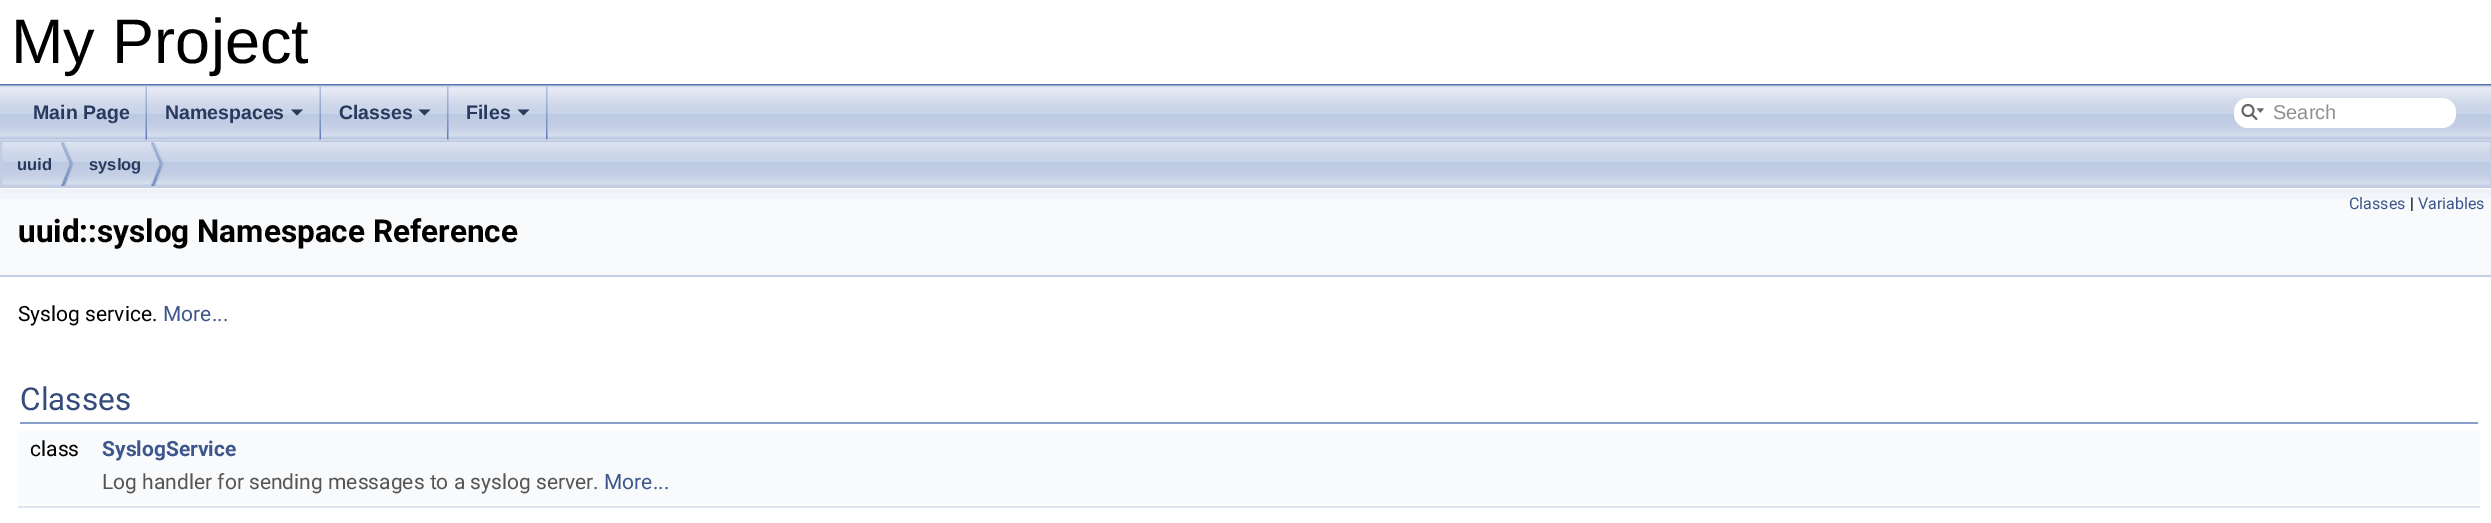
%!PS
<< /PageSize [2491 523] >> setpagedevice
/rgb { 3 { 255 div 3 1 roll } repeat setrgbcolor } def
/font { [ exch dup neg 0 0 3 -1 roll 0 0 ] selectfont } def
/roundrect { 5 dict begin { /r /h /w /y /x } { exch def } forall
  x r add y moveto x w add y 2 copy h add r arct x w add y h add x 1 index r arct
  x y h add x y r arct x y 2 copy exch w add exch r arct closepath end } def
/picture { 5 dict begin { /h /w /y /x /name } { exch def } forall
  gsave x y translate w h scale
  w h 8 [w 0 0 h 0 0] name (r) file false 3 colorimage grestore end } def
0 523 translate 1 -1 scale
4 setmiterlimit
255 255 255 rgb
0 0 2491 523 rectfill
83 115 180 rgb
0 84 2491 2 rectfill
(img/5.rgb) 0 139 2491 47 picture
(img/1.rgb) 0 85 2491 55 picture
(img/2.rgb) 145 85 2 55 picture
(img/2.rgb) 319 85 2 55 picture
40 58 93 rgb
291 109.5 moveto 303 109.5 lineto 297 115.5 lineto closepath fill
(img/3.rgb) 447 85 2 55 picture
418.5 109.5 moveto 430.5 109.5 lineto 424.5 115.5 lineto closepath fill
(img/3.rgb) 546 85 2 55 picture
517.5 109.5 moveto 529.5 109.5 lineto 523.5 115.5 lineto closepath fill
255 255 255 rgb
2234 98 222 30 14 roundrect fill
(img/4.rgb) 2241 103 24 18 picture
194 205 228 rgb
2 setlinewidth
1 141 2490 46 rectstroke
(img/6.rgb) 61 142 13 44 picture
(img/6.rgb) 151 142 13 44 picture
249 250 252 rgb
0 188 2491 87 rectfill
(img/7.rgb) 0 189 2491 10 picture
[
  [0 275 2491 2 196 207 229]
  [20 422 2458 2 135 158 203]
  [18 431 2462 34 249 250 252]
  [18 465 2462 39 249 250 252]
  [18 506 2462 2 222 228 240]
] { aload pop rgb rectfill } forall
/LiberationSans-Regular 63 font
0 0 0 rgb
11 63 moveto (My Project) show
/LiberationSans-Bold 19.5 font
40 58 93 rgb
[
  [(Main Page) 33 119]
  [(Namespaces) 165 119]
  [(Classes) 339 119]
  [(Files) 466 119]
] { aload pop moveto show } forall
/LiberationSans-Regular 20 font
144 144 144 rgb
2273 119 moveto (Search) show
/LiberationSans-Bold 16.5 font
40 58 93 rgb
17 170 moveto (uuid) show
89 170 moveto (syslog) show
/Roboto-Regular 16 font
61 87 140 rgb
2349 209 moveto (Classes) show
0 0 0 rgb
2410 209 moveto (|) show
61 87 140 rgb
2418 209 moveto (Variables) show
/Roboto-Bold 31.5 font
0 0 0 rgb
18 242 moveto (uuid::syslog Namespace Reference) show
/Roboto-Regular 21 font
18 321 moveto (Syslog service.) show
61 87 140 rgb
163 321 moveto (More...) show
/Roboto-Regular 31.5 font
53 76 123 rgb
20 410 moveto (Classes) show
/Roboto-Regular 21 font
0 0 0 rgb
30 456 moveto (class) show
/Roboto-Bold 21 font
61 87 140 rgb
102 456 moveto (SyslogService) show
/Roboto-Regular 21 font
85 85 85 rgb
102 489 moveto (Log handler for sending messages to a syslog server.) show
61 87 140 rgb
604 489 moveto (More...) show
showpage
